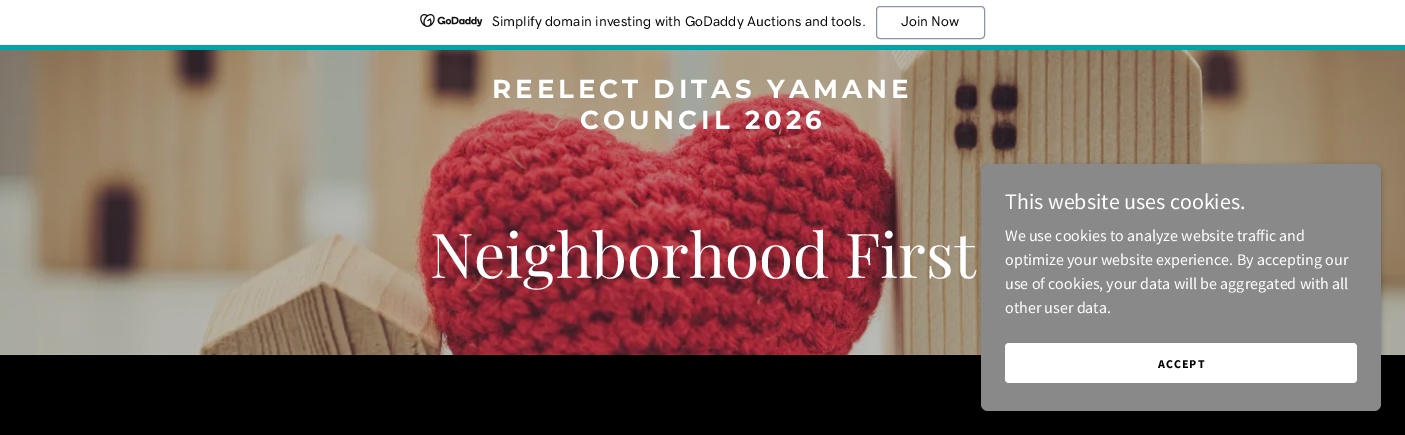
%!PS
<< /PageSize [1405 435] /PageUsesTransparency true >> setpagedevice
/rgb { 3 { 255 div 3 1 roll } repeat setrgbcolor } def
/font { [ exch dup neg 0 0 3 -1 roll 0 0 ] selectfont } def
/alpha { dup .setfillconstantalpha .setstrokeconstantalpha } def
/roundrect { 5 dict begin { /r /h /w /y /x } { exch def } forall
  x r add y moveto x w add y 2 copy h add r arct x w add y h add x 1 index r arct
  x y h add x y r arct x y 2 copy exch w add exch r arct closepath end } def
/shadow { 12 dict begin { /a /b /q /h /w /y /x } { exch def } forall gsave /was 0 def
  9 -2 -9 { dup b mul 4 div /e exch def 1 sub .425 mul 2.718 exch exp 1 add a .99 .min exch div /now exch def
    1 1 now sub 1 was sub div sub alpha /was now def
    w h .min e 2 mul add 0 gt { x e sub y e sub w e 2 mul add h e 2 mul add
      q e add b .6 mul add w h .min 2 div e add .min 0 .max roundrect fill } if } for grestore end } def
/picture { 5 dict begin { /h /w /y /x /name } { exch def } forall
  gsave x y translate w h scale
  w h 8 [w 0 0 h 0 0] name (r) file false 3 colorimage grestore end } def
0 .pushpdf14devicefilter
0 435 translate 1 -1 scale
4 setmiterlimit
0 0 0 rgb
0 0 1405 435 rectfill
255 255 255 rgb
0 0 1405 45 rectfill
0 164 166 rgb
0 45 1405 5 rectfill
(img/1.rgb) 420 14 63 13 picture
137 149 169 rgb
876.5 6.5 108 32 3.5 roundrect stroke
(img/2.rgb) 0 50 1405 305 picture
0 0 0 rgb
981 166 400 247 7 3 0.3 shadow
137 137 137 rgb
981 164 400 247 7 roundrect fill
255 255 255 rgb
1005 343 352 40 4 roundrect fill
/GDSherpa-Medium 14 font
0 0 0 rgb
492 26 moveto (Simplify domain investing with GoDaddy Auctions and tools.) show
901 26 moveto (Join Now) show
/Montserrat-Bold 26 font
255 255 255 rgb
492 98 moveto 4 0 (REELECT DITAS YAMANE) ashow
580 129 moveto 4 0 (COUNCIL 2026) ashow
/PlayfairDisplay-Regular 62 font
430 278 moveto (Neighborhood First) show
/SourceSansPro-Regular 22 font
1005 209 moveto (This website uses cookies.) show
/SourceSansPro-Regular 16 font
[
  [(We use cookies to analyze website traffic and) 1005 241]
  [(optimize your website experience. By accepting our) 1005 265]
  [(use of cookies, your data will be aggregated with all) 1005 289]
  [(other user data.) 1005 313]
] { aload pop moveto show } forall
/SourceSansPro-Bold 12 font
0 0 0 rgb
1158 368 moveto 1 0 (ACCEPT) ashow
.poppdf14devicefilter showpage
